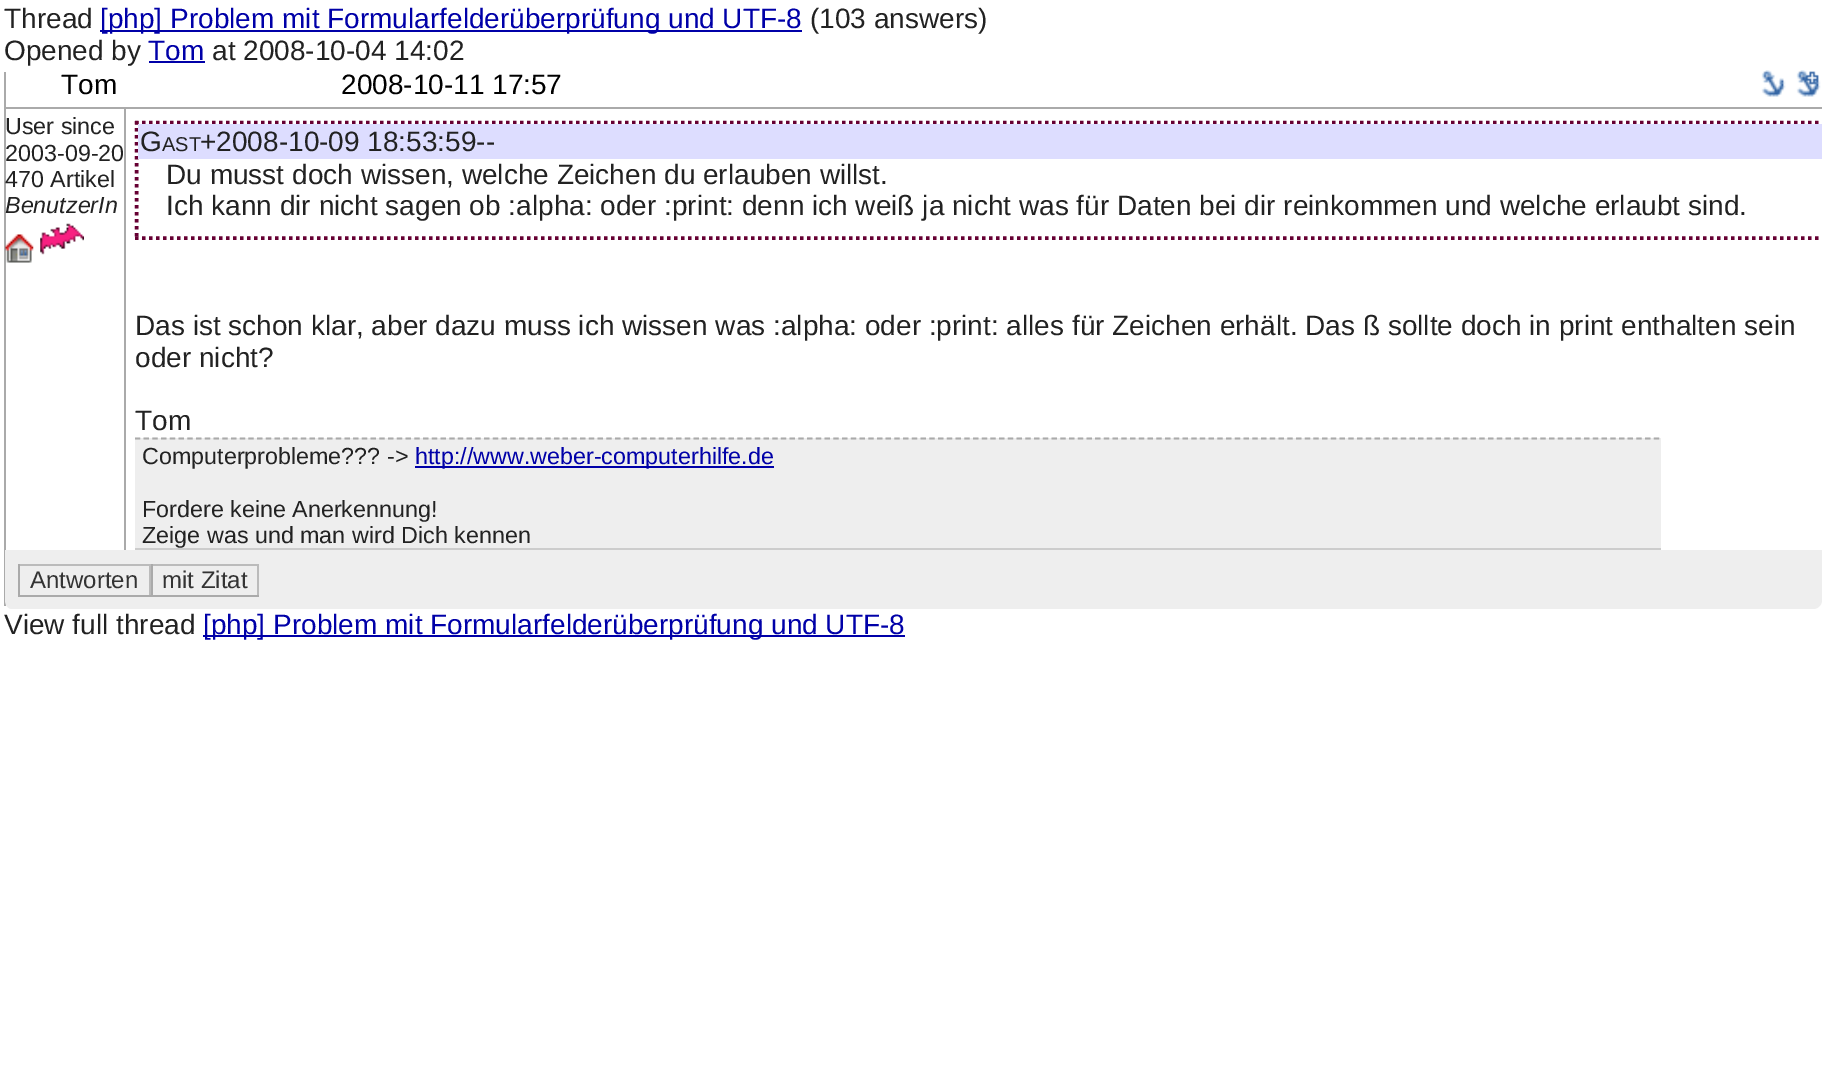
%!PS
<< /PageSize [1822 1091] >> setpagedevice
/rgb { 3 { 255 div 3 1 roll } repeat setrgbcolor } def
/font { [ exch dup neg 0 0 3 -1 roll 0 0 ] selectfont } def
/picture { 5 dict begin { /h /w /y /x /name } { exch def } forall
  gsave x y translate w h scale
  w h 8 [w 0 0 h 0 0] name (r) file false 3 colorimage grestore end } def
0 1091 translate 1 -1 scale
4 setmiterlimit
255 255 255 rgb
0 0 1822 1091 rectfill
[
  [100 30 702 2 0 0 168]
  [149 61 56 2 0 0 168]
  [4 72 2 534 170 170 170]
  [5 107 1817 2 170 170 170]
] { aload pop rgb rectfill } forall
(img/1.rgb) 1761 70 25 27 picture
(img/2.rgb) 1796 70 25 27 picture
(img/3.rgb) 5 234 29 29 picture
(img/4.rgb) 40 223 44 32 picture
124 109 2 441 rectfill
102 0 51 rgb
3.5 setlinewidth
[3.5 3.5] 0 setdash
135 122.5 moveto 1822 122.5 lineto stroke
135 238 moveto 1822 238 lineto stroke
136.5 121 moveto 136.5 240 lineto stroke
221 221 255 rgb
138 124 1684 35 rectfill
238 238 238 rgb
135 438 1526 110 rectfill
170 170 170 rgb
1.8 setlinewidth
[5.25 3.48] 0 setdash
135 438.5 moveto 1661 438.5 lineto stroke
204 204 204 rgb
135 548 1526 2 rectfill
0 0 168 rgb
415 466 359 2 rectfill
238 238 238 rgb
12 609 moveto 1813 609 lineto 1818 609 1822 605 1822 600 curveto 1822 550 lineto 5 550 lineto 5 600 lineto 5 605 8 609 12 609 curveto closepath fill
[
  [18 564 241 2 187 187 187]
  [149 564 2 33 187 187 187]
  [18 595 133 2 170 170 170]
  [18 564 2 33 170 170 170]
  [257 564 2 33 187 187 187]
  [151 595 108 2 170 170 170]
  [151 564 2 33 170 170 170]
  [203 635 702 2 0 0 168]
] { aload pop rgb rectfill } forall
/LiberationSans-Regular 28 font
34 34 34 rgb
4 28 moveto (Thread) show
0 0 168 rgb
100 28 moveto ([php] Problem mit Formularfelderüberprüfung und UTF-8) show
34 34 34 rgb
810 28 moveto (\(103 answers\)) show
4 60 moveto (Opened by) show
0 0 168 rgb
148 60 moveto (Tom) show
34 34 34 rgb
212 60 moveto (at 2008-10-04 14:02) show
0 0 0 rgb
61 94 moveto (Tom) show
341 94 moveto (2008-10-11 17:57) show
/LiberationSans-Regular 23.3 font
34 34 34 rgb
[
  [(User since) 5 134]
  [(2003-09-20) 5 161]
  [(470 Artikel) 5 187]
] { aload pop moveto show } forall
/LiberationSans-Italic 23.3 font
5 213 moveto (BenutzerIn) show
/LiberationSans-Regular 28 font
140 151 moveto (G) show
/LiberationSans-Regular 20 font
162 151 moveto (AST) show
/LiberationSans-Regular 28 font
[
  [(+2008-10-09 18:53:59--) 200 151]
  [(Du musst doch wissen, welche Zeichen du erlauben willst.) 166 184]
  [(Ich kann dir nicht sagen ob :alpha: oder :print: denn ich weiß ja nicht was für Daten bei dir reinkommen und welche erlaubt sind.) 166 215]
  [(Das ist schon klar, aber dazu muss ich wissen was :alpha: oder :print: alles für Zeichen erhält. Das ß sollte doch in print enthalten sein) 135 335]
  [(oder nicht?) 135 367]
  [(Tom) 135 430]
] { aload pop moveto show } forall
/LiberationSans-Regular 23.3 font
142 464 moveto (Computerprobleme??? ->) show
0 0 168 rgb
415 464 moveto (http://www.weber-computerhilfe.de) show
34 34 34 rgb
142 517 moveto (Fordere keine Anerkennung!) show
142 543 moveto (Zeige was und man wird Dich kennen) show
/LiberationSans-Regular 24 font
51 51 51 rgb
30 588 moveto (Antworten) show
162 588 moveto (mit Zitat) show
/LiberationSans-Regular 28 font
34 34 34 rgb
4 634 moveto (View full thread) show
0 0 168 rgb
203 634 moveto ([php] Problem mit Formularfelderüberprüfung und UTF-8) show
showpage
